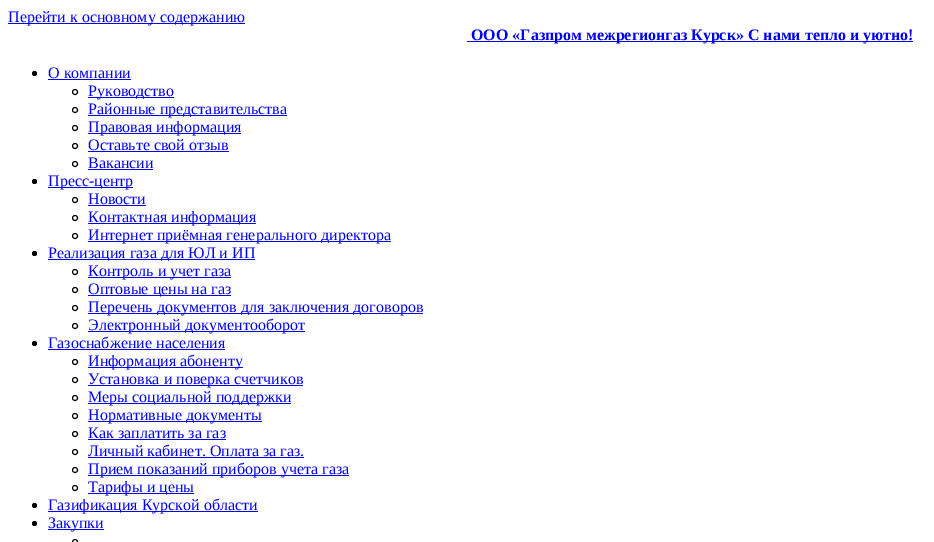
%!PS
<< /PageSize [934 542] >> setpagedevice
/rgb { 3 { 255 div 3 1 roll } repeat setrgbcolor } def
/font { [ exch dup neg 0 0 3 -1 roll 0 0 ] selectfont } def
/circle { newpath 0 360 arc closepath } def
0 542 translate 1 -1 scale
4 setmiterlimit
255 255 255 rgb
0 0 934 542 rectfill
0 0 238 rgb
8 23 237 1 rectfill
467 41 446 1 rectfill
0 0 0 rgb
34.5 73.5 2.5 circle fill
0 0 238 rgb
48 79 83 1 rectfill
0 0 0 rgb
75 92 2.5 circle stroke
0 0 238 rgb
88 97 86 1 rectfill
0 0 0 rgb
75 110 2.5 circle stroke
0 0 238 rgb
88 115 199 1 rectfill
0 0 0 rgb
75 128 2.5 circle stroke
0 0 238 rgb
88 133 153 1 rectfill
0 0 0 rgb
75 146 2.5 circle stroke
0 0 238 rgb
88 151 141 1 rectfill
0 0 0 rgb
75 164 2.5 circle stroke
0 0 238 rgb
88 169 65 1 rectfill
0 0 0 rgb
34.5 181.5 2.5 circle fill
0 0 238 rgb
48 187 85 1 rectfill
0 0 0 rgb
75 200 2.5 circle stroke
0 0 238 rgb
88 205 58 1 rectfill
0 0 0 rgb
75 218 2.5 circle stroke
0 0 238 rgb
88 223 168 1 rectfill
0 0 0 rgb
75 236 2.5 circle stroke
0 0 238 rgb
88 241 303 1 rectfill
0 0 0 rgb
34.5 253.5 2.5 circle fill
0 0 238 rgb
48 259 207 1 rectfill
0 0 0 rgb
75 272 2.5 circle stroke
0 0 238 rgb
88 277 143 1 rectfill
0 0 0 rgb
75 290 2.5 circle stroke
0 0 238 rgb
88 295 143 1 rectfill
0 0 0 rgb
75 308 2.5 circle stroke
0 0 238 rgb
88 313 335 1 rectfill
0 0 0 rgb
75 326 2.5 circle stroke
0 0 238 rgb
88 331 217 1 rectfill
0 0 0 rgb
34.5 343.5 2.5 circle fill
0 0 238 rgb
48 349 177 1 rectfill
0 0 0 rgb
75 362 2.5 circle stroke
0 0 238 rgb
88 367 155 1 rectfill
0 0 0 rgb
75 380 2.5 circle stroke
0 0 238 rgb
88 385 215 1 rectfill
0 0 0 rgb
75 398 2.5 circle stroke
0 0 238 rgb
88 403 203 1 rectfill
0 0 0 rgb
75 416 2.5 circle stroke
0 0 238 rgb
88 421 174 1 rectfill
0 0 0 rgb
75 434 2.5 circle stroke
0 0 238 rgb
88 439 138 1 rectfill
0 0 0 rgb
75 452 2.5 circle stroke
0 0 238 rgb
88 457 216 1 rectfill
0 0 0 rgb
75 470 2.5 circle stroke
0 0 238 rgb
88 475 261 1 rectfill
0 0 0 rgb
75 488 2.5 circle stroke
0 0 238 rgb
88 493 106 1 rectfill
0 0 0 rgb
34.5 505.5 2.5 circle fill
0 0 238 rgb
48 511 210 1 rectfill
0 0 0 rgb
34.5 523.5 2.5 circle fill
0 0 238 rgb
48 529 56 1 rectfill
0 0 0 rgb
75 542 2.5 circle stroke
/LiberationSerif-Regular 16 font
0 0 238 rgb
8 22 moveto (Перейти к основному содержанию) show
/LiberationSerif-Bold 16 font
471 40 moveto (ООО «Газпром межрегионгаз Курск» С нами тепло и уютно!) show
/LiberationSerif-Regular 16 font
[
  [(О компании) 48 78]
  [(Руководство) 88 96]
  [(Районные представительства) 88 114]
  [(Правовая информация) 88 132]
  [(Оставьте свой отзыв) 88 150]
  [(Вакансии) 88 168]
  [(Пресс-центр) 48 186]
  [(Новости) 88 204]
  [(Контактная информация) 88 222]
  [(Интернет приёмная генерального директора) 88 240]
  [(Реализация газа для ЮЛ и ИП) 48 258]
  [(Контроль и учет газа) 88 276]
  [(Оптовые цены на газ) 88 294]
  [(Перечень документов для заключения договоров) 88 312]
  [(Электронный документооборот) 88 330]
  [(Газоснабжение населения) 48 348]
  [(Информация абоненту) 88 366]
  [(Установка и поверка счетчиков) 88 384]
  [(Меры социальной поддержки) 88 402]
  [(Нормативные документы) 88 420]
  [(Как заплатить за газ) 88 438]
  [(Личный кабинет. Оплата за газ.) 88 456]
  [(Прием показаний приборов учета газа) 88 474]
  [(Тарифы и цены) 88 492]
  [(Газификация Курской области) 48 510]
  [(Закупки) 48 528]
] { aload pop moveto show } forall
showpage
